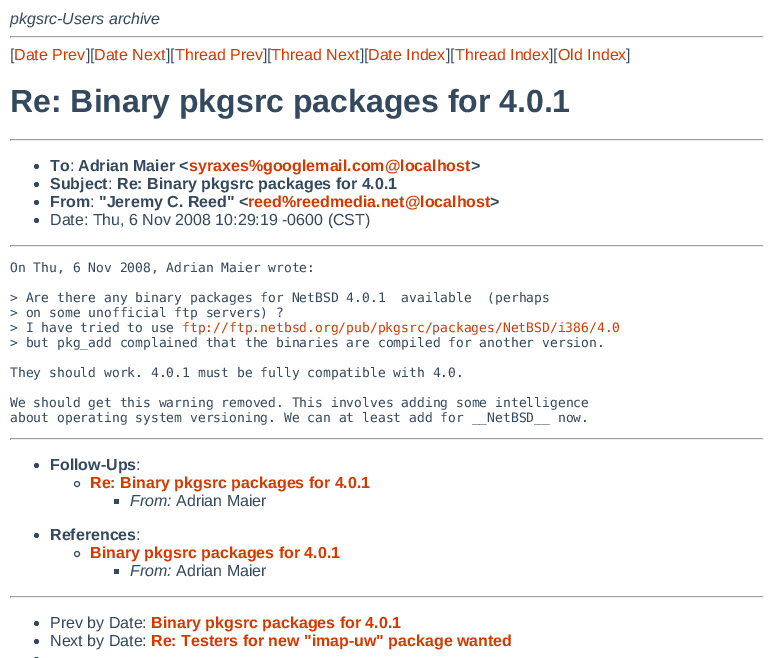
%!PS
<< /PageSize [774 658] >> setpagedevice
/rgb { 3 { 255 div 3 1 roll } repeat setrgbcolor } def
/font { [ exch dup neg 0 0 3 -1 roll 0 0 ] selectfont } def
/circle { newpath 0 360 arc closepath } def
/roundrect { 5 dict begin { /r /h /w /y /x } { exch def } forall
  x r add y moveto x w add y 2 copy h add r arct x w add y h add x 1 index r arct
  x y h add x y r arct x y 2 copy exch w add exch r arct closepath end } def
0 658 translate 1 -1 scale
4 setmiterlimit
255 255 255 rgb
0 0 774 658 rectfill
[
  [10 36 754 1 159 159 159]
  [763 36 1 2 238 238 238]
  [10 37 754 1 238 238 238]
  [10 36 1 2 159 159 159]
  [10 139 754 1 159 159 159]
  [763 139 1 2 238 238 238]
  [10 140 754 1 238 238 238]
  [10 139 1 2 159 159 159]
] { aload pop rgb rectfill } forall
52 73 94 rgb
36.5 166.5 2.5 circle fill
36.5 184.5 2.5 circle fill
36.5 202.5 2.5 circle fill
36.5 220.5 2.5 circle fill
[
  [10 245 754 1 159 159 159]
  [763 245 1 2 238 238 238]
  [10 246 754 1 238 238 238]
  [10 245 1 2 159 159 159]
  [10 438 754 1 159 159 159]
  [763 438 1 2 238 238 238]
  [10 439 754 1 238 238 238]
  [10 438 1 2 159 159 159]
] { aload pop rgb rectfill } forall
52 73 94 rgb
36.5 465.5 2.5 circle fill
77 484 2.5 circle stroke
114 499 5 5 rectfill
36.5 535.5 2.5 circle fill
77 554 2.5 circle stroke
[
  [114 569 5 5 52 73 94]
  [10 596 754 1 159 159 159]
  [763 596 1 2 238 238 238]
  [10 597 754 1 238 238 238]
  [10 596 1 2 159 159 159]
] { aload pop rgb rectfill } forall
52 73 94 rgb
36.5 623.5 2.5 circle fill
36.5 641.5 2.5 circle fill
34 657 5 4 2.5 roundrect fill
/LiberationSans-Italic 16 font
10 24 moveto (pkgsrc-Users archive) show
/LiberationSans-Regular 16 font
10 60 moveto ([) show
212 57 0 rgb
14 60 moveto (Date Prev) show
52 73 94 rgb
86 60 moveto (][) show
212 57 0 rgb
94 60 moveto (Date Next) show
52 73 94 rgb
166 60 moveto (][) show
212 57 0 rgb
175 60 moveto (Thread Prev) show
52 73 94 rgb
263 60 moveto (][) show
212 57 0 rgb
271 60 moveto (Thread Next) show
52 73 94 rgb
360 60 moveto (][) show
212 57 0 rgb
368 60 moveto (Date Index) show
52 73 94 rgb
446 60 moveto (][) show
212 57 0 rgb
455 60 moveto (Thread Index) show
52 73 94 rgb
549 60 moveto (][) show
212 57 0 rgb
558 60 moveto (Old Index) show
52 73 94 rgb
626 60 moveto (]) show
/LiberationSans-Bold 32 font
10 112 moveto (Re: Binary pkgsrc packages for 4.0.1) show
/LiberationSans-Bold 16 font
50 171 moveto (To) show
/LiberationSans-Regular 16 font
70 171 moveto (:) show
/LiberationSans-Bold 16 font
78 171 moveto (Adrian Maier <) show
212 57 0 rgb
189 171 moveto (syraxes%googlemail.com@localhost) show
52 73 94 rgb
471 171 moveto (>) show
50 189 moveto (Subject) show
/LiberationSans-Regular 16 font
108 189 moveto (:) show
/LiberationSans-Bold 16 font
117 189 moveto (Re: Binary pkgsrc packages for 4.0.1) show
50 207 moveto (From) show
/LiberationSans-Regular 16 font
90 207 moveto (:) show
/LiberationSans-Bold 16 font
99 207 moveto ("Jeremy C. Reed" <) show
212 57 0 rgb
248 207 moveto (reed%reedmedia.net@localhost) show
52 73 94 rgb
490 207 moveto (>) show
/LiberationSans-Regular 16 font
50 225 moveto (Date: Thu, 6 Nov 2008 10:29:19 -0600 \(CST\)) show
/DejaVuSansMono-Regular 13 font
[
  [(On Thu, 6 Nov 2008, Adrian Maier wrote:) 10 272]
  [(> Are there any binary packages for NetBSD 4.0.1  available  \(perhaps) 10 302]
  [(> on some unofficial ftp servers\) ?) 10 317]
  [(> I have tried to use) 10 332]
] { aload pop moveto show } forall
212 57 0 rgb
182 332 moveto (ftp://ftp.netbsd.org/pub/pkgsrc/packages/NetBSD/i386/4.0) show
52 73 94 rgb
[
  [(> but pkg_add complained that the binaries are compiled for another version.) 10 347]
  [(They should work. 4.0.1 must be fully compatible with 4.0.) 10 377]
  [(We should get this warning removed. This involves adding some intelligence) 10 407]
  [(about operating system versioning. We can at least add for __NetBSD__ now.) 10 422]
] { aload pop moveto show } forall
/LiberationSans-Bold 16 font
50 470 moveto (Follow-Ups) show
/LiberationSans-Regular 16 font
136 470 moveto (:) show
/LiberationSans-Bold 16 font
212 57 0 rgb
90 488 moveto (Re: Binary pkgsrc packages for 4.0.1) show
/LiberationSans-Italic 16 font
52 73 94 rgb
130 506 moveto (From:) show
/LiberationSans-Regular 16 font
176 506 moveto (Adrian Maier) show
/LiberationSans-Bold 16 font
50 540 moveto (References) show
/LiberationSans-Regular 16 font
136 540 moveto (:) show
/LiberationSans-Bold 16 font
212 57 0 rgb
90 558 moveto (Binary pkgsrc packages for 4.0.1) show
/LiberationSans-Italic 16 font
52 73 94 rgb
130 576 moveto (From:) show
/LiberationSans-Regular 16 font
176 576 moveto (Adrian Maier) show
50 628 moveto (Prev by Date:) show
/LiberationSans-Bold 16 font
212 57 0 rgb
151 628 moveto (Binary pkgsrc packages for 4.0.1) show
/LiberationSans-Regular 16 font
52 73 94 rgb
50 646 moveto (Next by Date:) show
/LiberationSans-Bold 16 font
212 57 0 rgb
151 646 moveto (Re: Testers for new "imap-uw" package wanted) show
showpage
